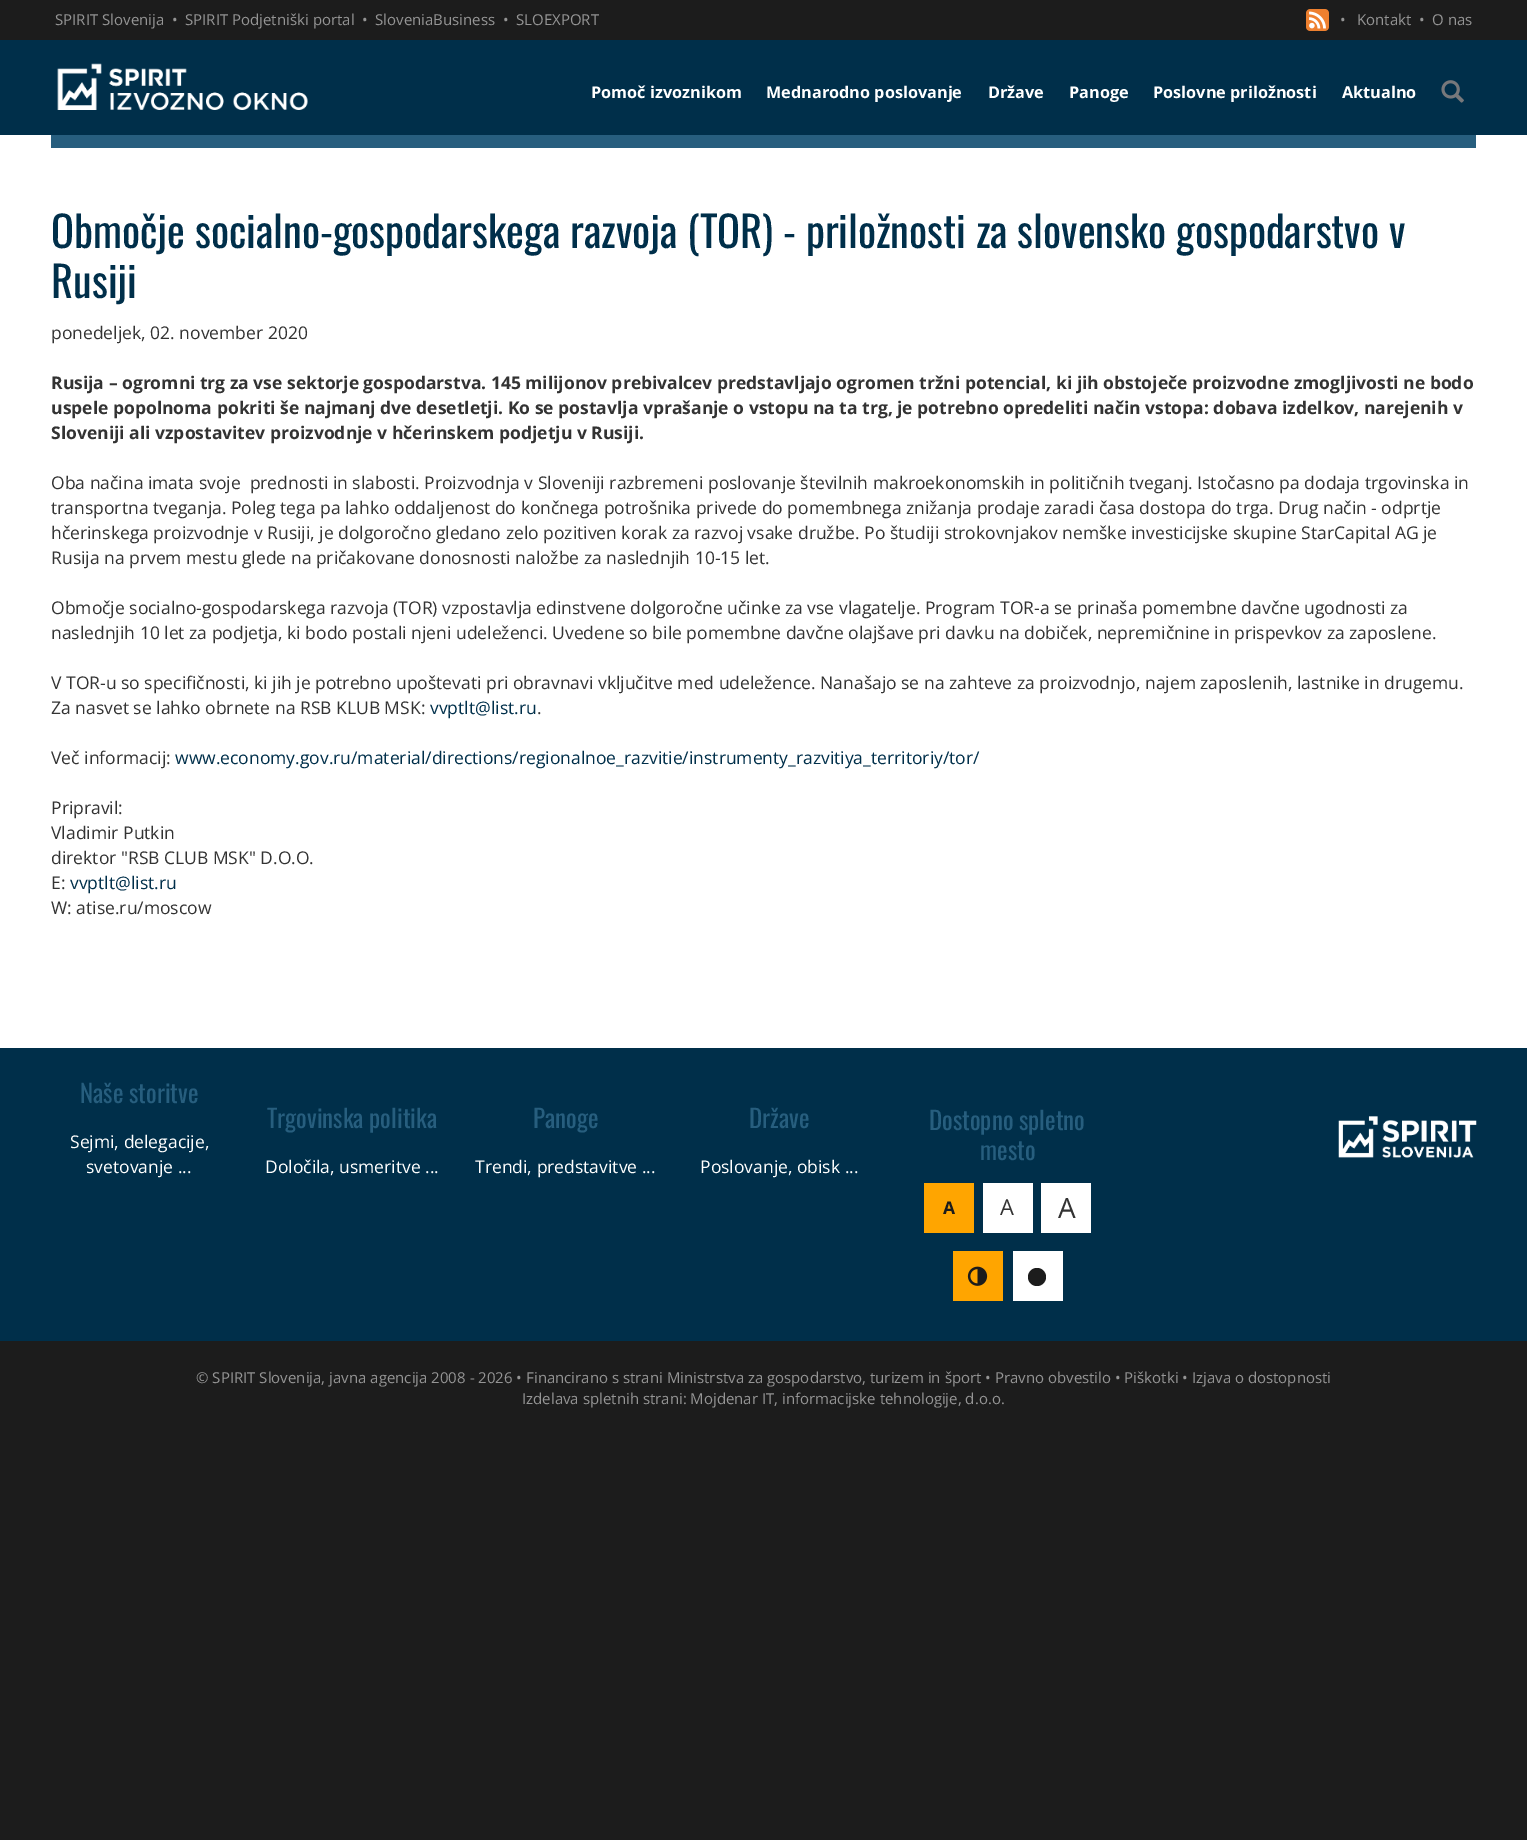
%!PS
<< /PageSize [1527 1840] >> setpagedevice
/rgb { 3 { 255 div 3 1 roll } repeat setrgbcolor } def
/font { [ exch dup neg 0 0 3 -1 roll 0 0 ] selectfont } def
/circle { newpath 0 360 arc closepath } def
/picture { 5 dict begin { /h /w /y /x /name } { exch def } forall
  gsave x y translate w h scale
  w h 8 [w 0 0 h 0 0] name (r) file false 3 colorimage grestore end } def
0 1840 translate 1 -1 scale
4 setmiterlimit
28 28 28 rgb
0 0 1527 1840 rectfill
(img/1.rgb) 1306 9 23 22 picture
0 47 74 rgb
0 40 1527 95 rectfill
(img/2.rgb) 57 63 251 47 picture
(img/3.rgb) 1441 80 23 23 picture
[
  [0 135 1527 913 255 255 255]
  [51 135 1425 13 39 94 126]
  [0 1048 1527 293 0 47 74]
  [924 1183 50 50 255 165 0]
  [983 1183 50 50 255 255 255]
  [1041 1183 50 50 255 255 255]
  [953 1251 50 50 255 165 0]
] { aload pop rgb rectfill } forall
(img/4.rgb) 967 1266 21 20 picture
255 255 255 rgb
1013 1251 50 50 rectfill
28 28 28 rgb
1037 1277 9 circle fill
(img/5.rgb) 1338 1116 139 42 picture
/OpenSans-Regular 15 font
149 149 149 rgb
[
  [(SPIRIT Slovenija) 55 25]
  [(•) 172 25]
  [(SPIRIT Podjetniški portal) 185 25]
  [(•) 362 25]
  [(SloveniaBusiness) 375 25]
  [(•) 503 25]
  [(SLOEXPORT) 516 25]
  [(•) 1340 25]
  [(Kontakt) 1357 25]
  [(•) 1419 25]
  [(O nas) 1432 25]
] { aload pop moveto show } forall
/OpenSans-Bold 16.25 font
255 255 255 rgb
[
  [(Pomoč izvoznikom) 591 98]
  [(Mednarodno poslovanje) 766 98]
  [(Države) 988 98]
  [(Panoge) 1069 98]
  [(Poslovne priložnosti) 1153 98]
  [(Aktualno) 1342 98]
] { aload pop moveto show } forall
/Oswald-Regular 42.5 font
0 47 74 rgb
51 248 moveto (Območje socialno-gospodarskega razvoja \(TOR\) - priložnosti za slovensko gospodarstvo v) show
51 298 moveto (Rusiji) show
/OpenSans-Regular 17.5 font
51 51 51 rgb
51 339 moveto (ponedeljek, 02. november 2020) show
/OpenSans-Bold 17.5 font
[
  [(Rusija – ogromni trg za vse sektorje gospodarstva. 145 milijonov prebivalcev predstavljajo ogromen tržni potencial, ki jih obstoječe proizvodne zmogljivosti ne bodo) 51 389]
  [(uspele popolnoma pokriti še najmanj dve desetletji. Ko se postavlja vprašanje o vstopu na ta trg, je potrebno opredeliti način vstopa: dobava izdelkov, narejenih v) 51 414]
  [(Sloveniji ali vzpostavitev proizvodnje v hčerinskem podjetju v Rusiji.) 51 439]
] { aload pop moveto show } forall
/OpenSans-Regular 17.5 font
[
  [(Oba načina imata svoje  prednosti in slabosti. Proizvodnja v Sloveniji razbremeni poslovanje številnih makroekonomskih in političnih tveganj. Istočasno pa dodaja trgovinska in) 51 489]
  [(transportna tveganja. Poleg tega pa lahko oddaljenost do končnega potrošnika privede do pomembnega znižanja prodaje zaradi časa dostopa do trga. Drug način - odprtje) 51 514]
  [(hčerinskega proizvodnje v Rusiji, je dolgoročno gledano zelo pozitiven korak za razvoj vsake družbe. Po študiji strokovnjakov nemške investicijske skupine StarCapital AG je) 51 539]
  [(Rusija na prvem mestu glede na pričakovane donosnosti naložbe za naslednjih 10-15 let.) 51 564]
  [(Območje socialno-gospodarskega razvoja \(TOR\) vzpostavlja edinstvene dolgoročne učinke za vse vlagatelje. Program TOR-a se prinaša pomembne davčne ugodnosti za) 51 614]
  [(naslednjih 10 let za podjetja, ki bodo postali njeni udeleženci. Uvedene so bile pomembne davčne olajšave pri davku na dobiček, nepremičnine in prispevkov za zaposlene.) 51 639]
  [(V TOR-u so specifičnosti, ki jih je potrebno upoštevati pri obravnavi vključitve med udeležence. Nanašajo se na zahteve za proizvodnjo, najem zaposlenih, lastnike in drugemu.) 51 689]
  [(Za nasvet se lahko obrnete na RSB KLUB MSK:) 51 714]
] { aload pop moveto show } forall
0 47 74 rgb
430 714 moveto (vvptlt@list.ru) show
51 51 51 rgb
537 714 moveto (.) show
51 764 moveto (Več informacij:) show
0 47 74 rgb
175 764 moveto (www.economy.gov.ru/material/directions/regionalnoe_razvitie/instrumenty_razvitiya_territoriy/tor/) show
51 51 51 rgb
[
  [(Pripravil:) 51 814]
  [(Vladimir Putkin) 51 839]
  [(direktor "RSB CLUB MSK" D.O.O.) 51 864]
  [(E:) 51 889]
] { aload pop moveto show } forall
0 47 74 rgb
70 889 moveto (vvptlt@list.ru) show
51 51 51 rgb
51 914 moveto (W: atise.ru/moscow) show
/Oswald-Regular 25 font
39 94 126 rgb
80 1103 moveto (Naše storitve) show
/OpenSans-Regular 17.5 font
255 255 255 rgb
70 1148 moveto (Sejmi, delegacije,) show
86 1173 moveto (svetovanje ...) show
/Oswald-Regular 25 font
39 94 126 rgb
267 1128 moveto (Trgovinska politika) show
/OpenSans-Regular 17.5 font
255 255 255 rgb
265 1173 moveto (Določila, usmeritve ...) show
/Oswald-Regular 25 font
39 94 126 rgb
533 1128 moveto (Panoge) show
/OpenSans-Regular 17.5 font
255 255 255 rgb
475 1173 moveto (Trendi, predstavitve ...) show
/Oswald-Regular 25 font
39 94 126 rgb
749 1128 moveto (Države) show
/OpenSans-Regular 17.5 font
255 255 255 rgb
700 1173 moveto (Poslovanje, obisk ...) show
/Oswald-Regular 25 font
39 94 126 rgb
929 1130 moveto (Dostopno spletno) show
980 1160 moveto (mesto) show
/OpenSans-Bold 17.5 font
28 28 28 rgb
943 1214 moveto (A) show
/OpenSans-Regular 22 font
51 51 51 rgb
1000 1215 moveto (A) show
/OpenSans-Regular 28 font
1058 1218 moveto (A) show
/OpenSans-Regular 15 font
149 149 149 rgb
196 1383 moveto (© SPIRIT Slovenija, javna agencija 2008 - 2026 • Financirano s strani Ministrstva za gospodarstvo, turizem in šport • Pravno obvestilo • Piškotki • Izjava o dostopnosti) show
522 1404 moveto (Izdelava spletnih strani: Mojdenar IT, informacijske tehnologije, d.o.o.) show
showpage
